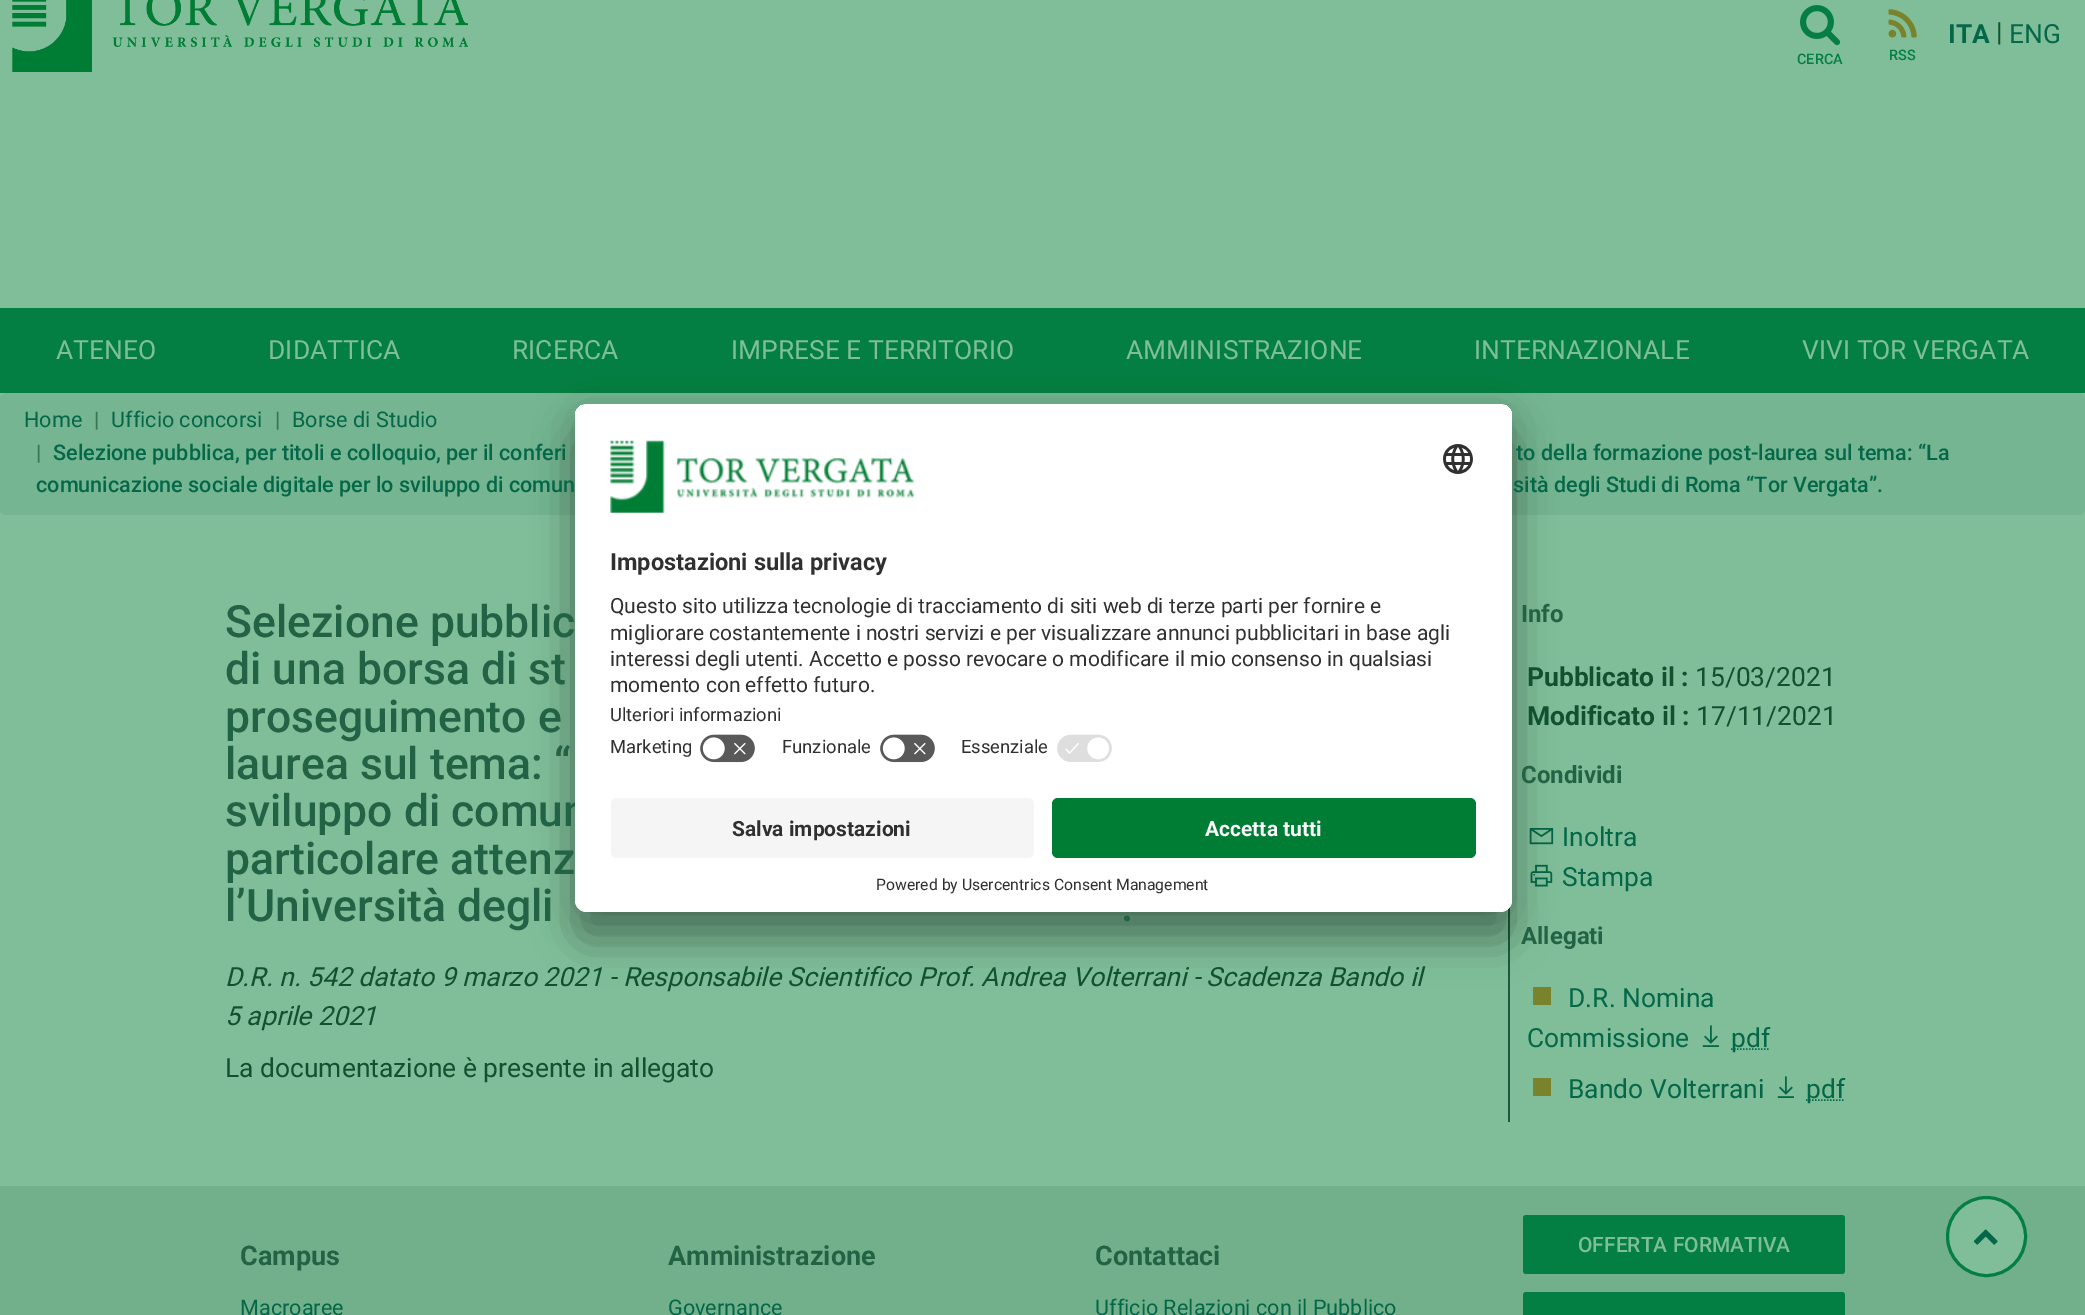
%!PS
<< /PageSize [2085 1315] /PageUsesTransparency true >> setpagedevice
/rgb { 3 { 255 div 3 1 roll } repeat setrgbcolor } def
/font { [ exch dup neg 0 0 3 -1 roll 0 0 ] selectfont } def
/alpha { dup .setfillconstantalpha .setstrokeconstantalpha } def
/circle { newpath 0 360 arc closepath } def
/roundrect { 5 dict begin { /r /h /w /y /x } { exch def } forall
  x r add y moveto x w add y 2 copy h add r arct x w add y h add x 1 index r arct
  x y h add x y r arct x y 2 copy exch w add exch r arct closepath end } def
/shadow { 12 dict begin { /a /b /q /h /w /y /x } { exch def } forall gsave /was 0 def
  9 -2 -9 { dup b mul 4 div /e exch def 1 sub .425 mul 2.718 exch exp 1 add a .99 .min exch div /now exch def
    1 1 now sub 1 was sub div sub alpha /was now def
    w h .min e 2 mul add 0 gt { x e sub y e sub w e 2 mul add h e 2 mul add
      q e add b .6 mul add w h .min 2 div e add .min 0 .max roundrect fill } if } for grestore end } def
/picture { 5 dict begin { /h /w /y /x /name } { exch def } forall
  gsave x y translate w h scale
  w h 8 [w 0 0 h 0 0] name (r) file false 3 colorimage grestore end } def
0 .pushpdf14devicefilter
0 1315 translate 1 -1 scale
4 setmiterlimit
128 190 154 rgb
0 0 2085 1315 rectfill
(img/1.rgb) 12 0 456 72 picture
(img/2.rgb) 1800 5 41 41 picture
(img/3.rgb) 1888 9 29 29 picture
4 127 67 rgb
0 308 2085 85 rectfill
117 181 146 rgb
0 393 2085 122 6 roundrect fill
26 92 58 rgb
1508 906 2 216 rectfill
(img/8.rgb) 1529 828 25 17 picture
(img/9.rgb) 1530 864 23 23 picture
120 131 43 rgb
1533 987 18 18 rectfill
0 0 0 rgb
575 434 937 508 12 21 0.3 shadow
575 411 937 509 12 19.5 0.22 shadow
(img/10.rgb) 1702 1025 17 22 picture
3 103 72 rgb
1.5 setlinewidth
[1.5 1.5] 0 setdash
1731 1049 moveto 1770 1049 lineto stroke
120 131 43 rgb
1533 1078 18 18 rectfill
(img/10.rgb) 1777 1076 17 22 picture
3 103 72 rgb
1806 1100 moveto 1845 1100 lineto stroke
114 176 140 rgb
0 1186 2085 129 rectfill
4 127 67 rgb
1523 1215 322 59 3 roundrect fill
1523 1292 322 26 3 roundrect fill
128 190 154 rgb
1986.5 1236.5 39 circle gsave fill grestore
4 127 67 rgb
3 setlinewidth
[] 0 setdash
stroke
(img/11.rgb) 1973 1229 25 16 picture
/Roboto-Bold 26.4 font
3 103 72 rgb
1948 43 moveto (ITA) show
/Roboto-Regular 26.4 font
17 81 47 rgb
1996 41 moveto (|) show
3 103 72 rgb
2009 43 moveto (ENG) show
/Roboto-Medium 14.5 font
4 127 67 rgb
1797 64 moveto (CERCA) show
1889 60 moveto (RSS) show
/Roboto-Regular 26.4 font
128 190 154 rgb
[
  [(ATENEO) 56 359]
  [(DIDATTICA) 268 359]
  [(RICERCA) 512 359]
  [(IMPRESE E TERRITORIO) 731 359]
  [(AMMINISTRAZIONE) 1126 359]
  [(INTERNAZIONALE) 1474 359]
  [(VIVI TOR VERGATA) 1802 359]
] { aload pop moveto show } forall
/Roboto-Regular 21.6 font
3 103 72 rgb
24 427 moveto (Home) show
54 121 89 rgb
94 427 moveto (|) show
3 103 72 rgb
111 427 moveto (Ufficio concorsi) show
54 121 89 rgb
275 427 moveto (|) show
3 103 72 rgb
292 427 moveto (Borse di Studio) show
/Roboto-Medium 21.6 font
54 121 89 rgb
36 460 moveto (|) show
3 103 72 rgb
[
  [(Selezione pubblica, per titoli e colloquio, per il conferi) 53 460]
  [(to della formazione post-laurea sul tema: “La) 1516 460]
  [(comunicazione sociale digitale per lo sviluppo di comun) 36 492]
  [(sità degli Studi di Roma “Tor Vergata”.) 1513 492]
] { aload pop moveto show } forall
/Roboto-Medium 44.5 font
35 99 69 rgb
[
  [(Selezione pubblic) 225 637]
  [(di una borsa di st) 225 684]
  [(proseguimento e) 225 732]
  [(laurea sul tema: “) 225 779]
  [(sviluppo di comun) 225 826]
] { aload pop moveto show } forall
255 255 255 rgb
575 404 937 508 12 roundrect fill
gsave
575 404 937 508 12 roundrect clip newpath
587 404 moveto 1500 404 lineto 1506.5 404 1512 409.5 1512 416 curveto 1512 786 lineto 575 786 lineto 575 416 lineto 575 409.5 580.5 404 587 404 curveto closepath clip newpath
575 405 937 381 rectfill
575 405 937 321 rectfill
grestore
(img/5.rgb) 1443 444 30 30 picture
(img/4.rgb) 610 440 305 73 picture
(img/7.rgb) 1057 734 55 28 picture
(img/6.rgb) 880 734 55 29 picture
(img/6.rgb) 700 734 55 29 picture
/Roboto-Regular 21 font
48 48 48 rgb
[
  [(momento con effetto futuro.) 610 692]
  [(interessi degli utenti. Accetto e posso revocare o modificare il mio consenso in qualsiasi) 610 666]
  [(migliorare costantemente i nostri servizi e per visualizzare annunci pubblicitari in base agli) 610 640]
] { aload pop moveto show } forall
gsave
611 588 865 117 rectclip
610 613 moveto (Questo sito utilizza tecnologie di tracciamento di siti web di terze parti per fornire e) show
grestore
/Roboto-Regular 18.4 font
[
  [(Essenziale) 961 753]
  [(Funzionale) 782 753]
  [(Marketing) 610 753]
  [(Ulteriori informazioni) 610 721]
] { aload pop moveto show } forall
/Roboto-Bold 23.6 font
610 570 moveto (Impostazioni sulla privacy) show
255 255 255 rgb
575 786 moveto 1512 786 lineto 1512 900 lineto 1512 906.5 1506.5 912 1500 912 curveto 587 912 lineto 580.5 912 575 906.5 575 900 curveto closepath fill
/Roboto-Regular 15.75 font
48 48 48 rgb
876 890 moveto (Powered by Usercentrics Consent Management) show
0 125 52 rgb
1052 798 424 60 6 roundrect fill
/Roboto-Bold 21 font
250 250 250 rgb
1205 836 moveto (Accetta tutti) show
245 245 245 rgb
611 798 423 60 6 roundrect fill
48 48 48 rgb
732 836 moveto (Salva impostazioni) show
/Roboto-Medium 44.5 font
35 99 69 rgb
[
  [(particolare attenz) 225 874]
  [(l’Università degli) 225 921]
  [(.) 1121 921]
] { aload pop moveto show } forall
/Roboto-Italic 26.4 font
17 81 47 rgb
225 986 moveto (D.R. n. 542 datato 9 marzo 2021 - Responsabile Scientifico Prof. Andrea Volterrani - Scadenza Bando il) show
225 1025 moveto (5 aprile 2021) show
/Roboto-Regular 26.4 font
225 1077 moveto (La documentazione è presente in allegato) show
/Roboto-Bold 24 font
35 99 69 rgb
1521 622 moveto (Info) show
/Roboto-Bold 26.4 font
17 81 47 rgb
1527 686 moveto (Pubblicato il :) show
/Roboto-Regular 26.4 font
1695 686 moveto (15/03/2021) show
/Roboto-Bold 26.4 font
1527 725 moveto (Modificato il :) show
/Roboto-Regular 26.4 font
1696 725 moveto (17/11/2021) show
/Roboto-Bold 24 font
35 99 69 rgb
1521 783 moveto (Condividi) show
/Roboto-Regular 26.4 font
3 103 72 rgb
1562 846 moveto (Inoltra) show
1562 886 moveto (Stampa) show
/Roboto-Bold 24 font
35 99 69 rgb
1521 944 moveto (Allegati) show
/Roboto-Regular 26.4 font
3 103 72 rgb
[
  [(D.R. Nomina) 1568 1007]
  [(Commissione) 1527 1047]
  [(pdf) 1731 1047]
  [(Bando Volterrani) 1568 1098]
  [(pdf) 1806 1098]
] { aload pop moveto show } forall
/Roboto-Bold 27 font
35 99 69 rgb
240 1265 moveto (Campus) show
/Roboto-Regular 21.6 font
3 103 72 rgb
240 1315 moveto (Macroaree) show
/Roboto-Bold 27 font
35 99 69 rgb
668 1265 moveto (Amministrazione) show
/Roboto-Regular 21.6 font
3 103 72 rgb
668 1315 moveto (Governance) show
/Roboto-Bold 27 font
35 99 69 rgb
1095 1265 moveto (Contattaci) show
/Roboto-Regular 21.6 font
3 103 72 rgb
1095 1315 moveto (Ufficio Relazioni con il Pubblico) show
/Roboto-Medium 21 font
128 190 154 rgb
1578 1252 moveto (OFFERTA FORMATIVA) show
.poppdf14devicefilter showpage
